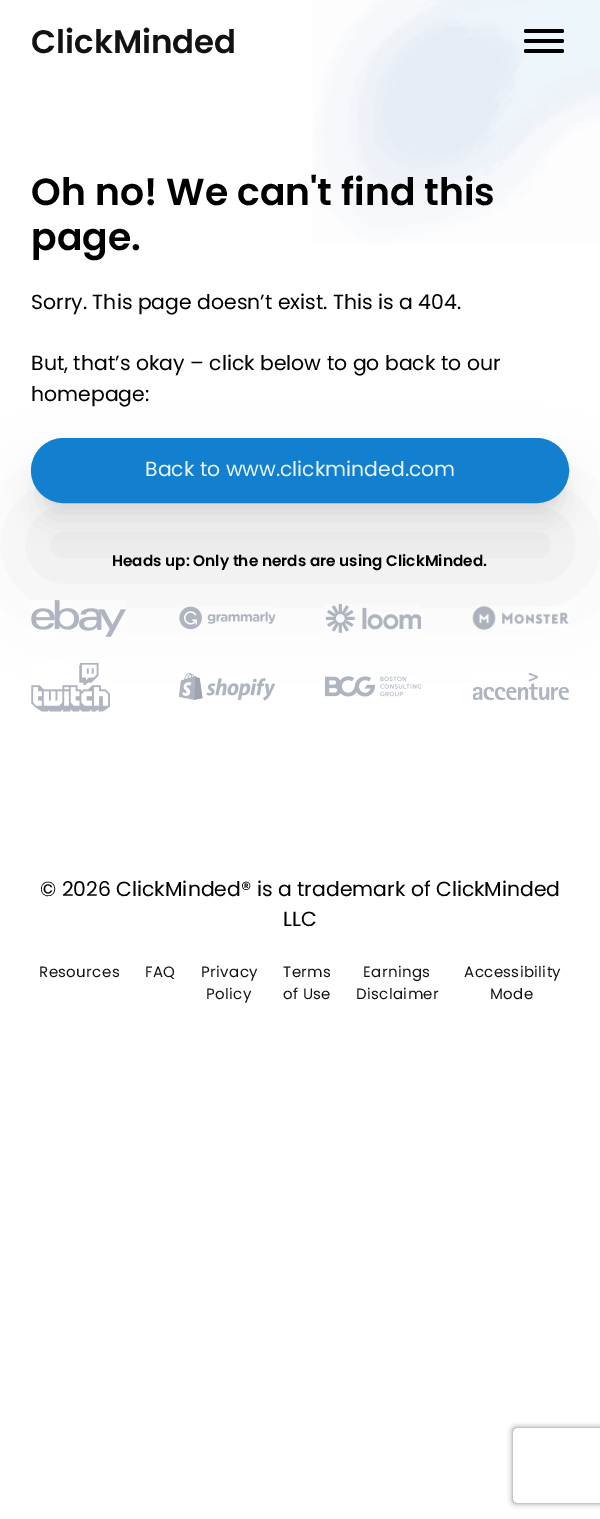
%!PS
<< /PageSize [600 1519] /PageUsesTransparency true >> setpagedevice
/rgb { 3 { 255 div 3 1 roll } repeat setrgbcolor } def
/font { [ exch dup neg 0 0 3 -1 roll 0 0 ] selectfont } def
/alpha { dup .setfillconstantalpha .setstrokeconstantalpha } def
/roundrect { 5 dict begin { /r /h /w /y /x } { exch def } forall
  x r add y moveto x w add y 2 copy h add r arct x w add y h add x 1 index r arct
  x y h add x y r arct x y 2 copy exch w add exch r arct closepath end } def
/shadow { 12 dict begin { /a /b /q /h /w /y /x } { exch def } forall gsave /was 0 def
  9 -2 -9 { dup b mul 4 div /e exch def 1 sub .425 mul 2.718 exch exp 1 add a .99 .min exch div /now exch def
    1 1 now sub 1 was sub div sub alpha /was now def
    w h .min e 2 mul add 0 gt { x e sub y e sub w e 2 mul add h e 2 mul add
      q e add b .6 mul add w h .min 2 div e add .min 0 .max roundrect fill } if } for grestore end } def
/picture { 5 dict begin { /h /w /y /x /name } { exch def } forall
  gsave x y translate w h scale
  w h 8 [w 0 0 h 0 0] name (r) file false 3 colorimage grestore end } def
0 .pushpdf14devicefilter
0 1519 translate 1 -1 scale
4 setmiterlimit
255 255 255 rgb
0 0 600 1519 rectfill
(img/1.rgb) 312 0 288 245 picture
0 0 0 rgb
524 29 40 4 2 roundrect fill
524 39 40 4 2 roundrect fill
524 49 40 4 2 roundrect fill
38 519 525 52 26 50 0.1 shadow
38 466 525 53 26.5 15 0.08 shadow
38 454 525 52 26 6 0.06 shadow
18 128 206 rgb
32.5 439.5 535 62 31 roundrect gsave fill grestore
3 setlinewidth
stroke
(img/2.rgb) 31 600 95 37 picture
(img/3.rgb) 179 606 96 24 picture
(img/4.rgb) 325 604 96 29 picture
(img/5.rgb) 472 606 97 24 picture
(img/6.rgb) 31 663 79 49 picture
(img/7.rgb) 179 673 96 28 picture
(img/8.rgb) 325 676 96 21 picture
(img/9.rgb) 473 673 96 28 picture
gsave
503 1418 moveto 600 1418 lineto 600 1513 lineto 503 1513 lineto closepath 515.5 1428 moveto 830.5 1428 lineto 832 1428 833 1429 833 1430.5 curveto 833 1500.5 lineto 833 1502 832 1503 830.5 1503 curveto 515.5 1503 lineto 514 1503 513 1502 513 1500.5 curveto 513 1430.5 lineto 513 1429 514 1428 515.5 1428 curveto closepath eoclip newpath
128 128 128 rgb
513 1428 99 75 2.5 3 1 shadow
grestore
/Poppins-SemiBold 32.5 font
18 18 18 rgb
31 53 moveto (ClickMinded) show
/Poppins-SemiBold 37.75 font
0 0 0 rgb
31 205 moveto (Oh no! We can't find this) show
31 250 moveto (page.) show
/Poppins-Regular 20.4 font
[
  [(Sorry. This page doesn’t exist. This is a 404.) 31 309]
  [(But, that’s okay – click below to go back to our) 31 370]
  [(homepage:) 31 401]
] { aload pop moveto show } forall
232 244 253 rgb
145 476 moveto (Back to www.clickminded.com) show
/Poppins-SemiBold 15.3 font
0 0 0 rgb
112 566 moveto (Heads up: Only the nerds are using ClickMinded.) show
/Poppins-Regular 20.4 font
40 896 moveto (© 2026 ClickMinded® is a trademark of ClickMinded) show
283 926 moveto (LLC) show
/Poppins-Regular 15 font
18 18 18 rgb
39 977 moveto 0.4 0 (Resources) ashow
145 977 moveto 0.4 0 (FAQ) ashow
201 977 moveto 0.4 0 (Privacy) ashow
206 999 moveto 0.4 0 (Policy) ashow
283 977 moveto 0.4 0 (Terms) ashow
283 999 moveto 0.4 0 (of Use) ashow
363 977 moveto 0.4 0 (Earnings) ashow
356 999 moveto 0.4 0 (Disclaimer) ashow
464 977 moveto 0.4 0 (Accessibility) ashow
490 999 moveto 0.4 0 (Mode) ashow
.poppdf14devicefilter showpage
